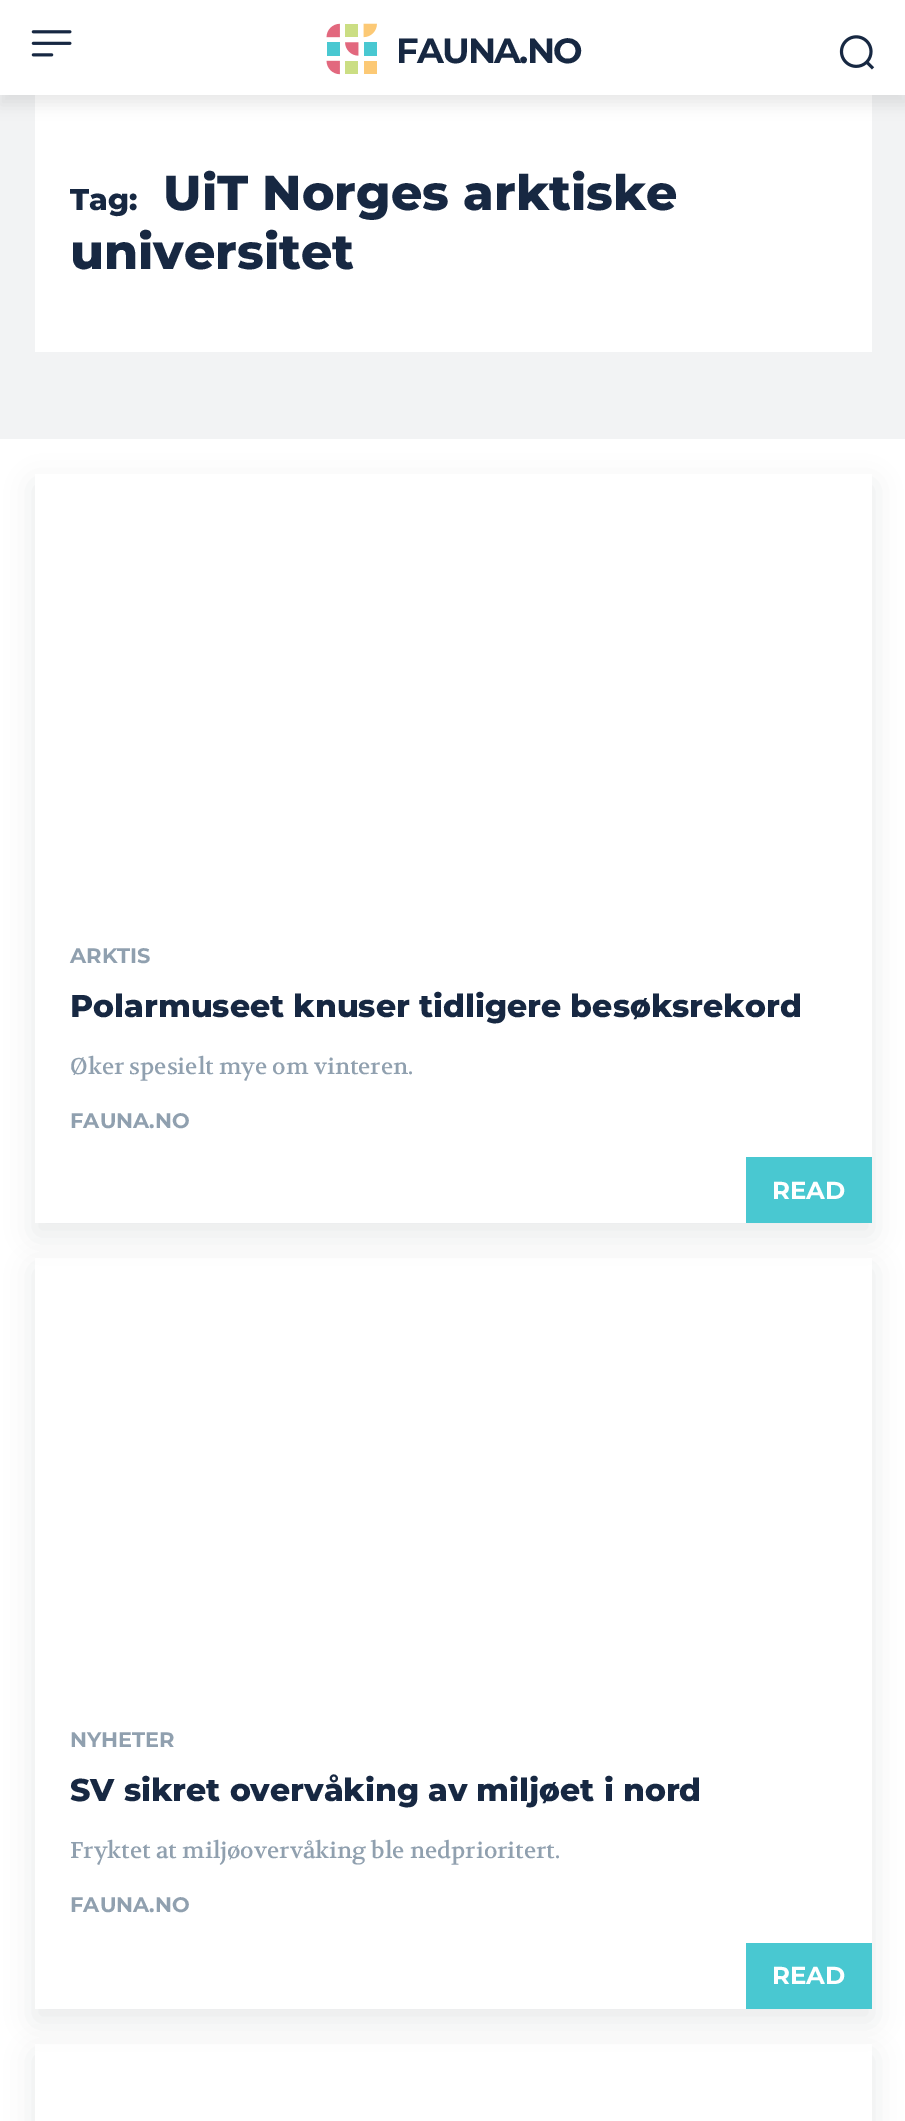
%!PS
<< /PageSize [905 2121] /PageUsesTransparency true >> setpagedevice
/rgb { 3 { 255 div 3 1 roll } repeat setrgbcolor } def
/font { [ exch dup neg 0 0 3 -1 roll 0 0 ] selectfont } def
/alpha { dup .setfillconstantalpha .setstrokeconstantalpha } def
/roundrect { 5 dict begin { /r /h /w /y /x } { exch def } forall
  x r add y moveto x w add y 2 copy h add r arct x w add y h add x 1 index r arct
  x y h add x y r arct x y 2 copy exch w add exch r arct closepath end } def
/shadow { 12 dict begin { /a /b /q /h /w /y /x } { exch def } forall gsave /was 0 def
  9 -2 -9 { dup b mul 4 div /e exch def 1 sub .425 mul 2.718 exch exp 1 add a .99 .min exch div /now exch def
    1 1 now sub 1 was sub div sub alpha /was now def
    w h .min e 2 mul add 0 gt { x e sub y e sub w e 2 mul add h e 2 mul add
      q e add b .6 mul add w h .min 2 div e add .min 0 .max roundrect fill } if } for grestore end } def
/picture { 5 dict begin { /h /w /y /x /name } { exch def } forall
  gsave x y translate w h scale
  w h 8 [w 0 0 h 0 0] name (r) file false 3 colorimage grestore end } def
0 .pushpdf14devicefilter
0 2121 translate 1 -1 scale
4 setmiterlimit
255 255 255 rgb
0 0 905 2121 rectfill
(img/1.rgb) 31 30 41 27 picture
(img/2.rgb) 326 23 51 52 picture
(img/3.rgb) 839 35 36 35 picture
242 243 244 rgb
0 95 905 344 rectfill
255 255 255 rgb
35 95 837 257 rectfill
gsave
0 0 moveto 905 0 lineto 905 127 lineto 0 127 lineto closepath 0 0 moveto 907 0 lineto 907 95 lineto 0 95 lineto closepath eoclip newpath
0 0 0 rgb
0 11 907 94 0 7 0.08 shadow
grestore
gsave
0 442 moveto 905 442 lineto 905 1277 lineto 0 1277 lineto closepath 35 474 moveto 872 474 lineto 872 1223 lineto 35 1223 lineto closepath eoclip newpath
22 35 58 rgb
35 485 837 749 0 14 0.1 shadow
grestore
871 893 1 330 rectfill
73 200 209 rgb
746 1157 126 66 rectfill
gsave
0 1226 moveto 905 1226 lineto 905 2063 lineto 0 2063 lineto closepath 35 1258 moveto 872 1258 lineto 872 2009 lineto 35 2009 lineto closepath eoclip newpath
22 35 58 rgb
35 1269 837 751 0 14 0.1 shadow
grestore
255 255 255 rgb
871 1677 1 332 rectfill
73 200 209 rgb
746 1943 126 66 rectfill
gsave
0 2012 moveto 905 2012 lineto 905 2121 lineto 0 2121 lineto closepath 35 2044 moveto 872 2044 lineto 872 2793 lineto 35 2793 lineto closepath eoclip newpath
22 35 58 rgb
35 2055 837 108 0 14 0.1 shadow
grestore
/Montserrat-Bold 35 font
23 40 66 rgb
396 63 moveto -1.75 0 (FAUNA.NO) ashow
/Montserrat-ExtraBold 30 font
70 210 moveto (Tag:) show
/Montserrat-ExtraBold 49 font
163 210 moveto (UiT Norges arktiske) show
70 269 moveto (universitet) show
/Montserrat-Bold 21 font
144 160 175 rgb
70 963 moveto (ARKTIS) show
/Montserrat-ExtraBold 31.5 font
23 40 66 rgb
70 1017 moveto (Polarmuseet knuser tidligere besøksrekord) show
/Volkhov-Regular 22.75 font
144 160 175 rgb
70 1074 moveto (Øker spesielt mye om vinteren.) show
/Montserrat-Bold 21 font
70 1128 moveto (FAUNA.NO) show
/Montserrat-Bold 24.5 font
255 255 255 rgb
772 1199 moveto (READ) show
/Montserrat-Bold 21 font
144 160 175 rgb
70 1747 moveto (NYHETER) show
/Montserrat-ExtraBold 31.5 font
23 40 66 rgb
70 1801 moveto (SV sikret overvåking av miljøet i nord) show
/Volkhov-Regular 22.75 font
144 160 175 rgb
70 1858 moveto (Fryktet at miljøovervåking ble nedprioritert.) show
/Montserrat-Bold 21 font
70 1912 moveto (FAUNA.NO) show
/Montserrat-Bold 24.5 font
255 255 255 rgb
772 1984 moveto (READ) show
.poppdf14devicefilter showpage
